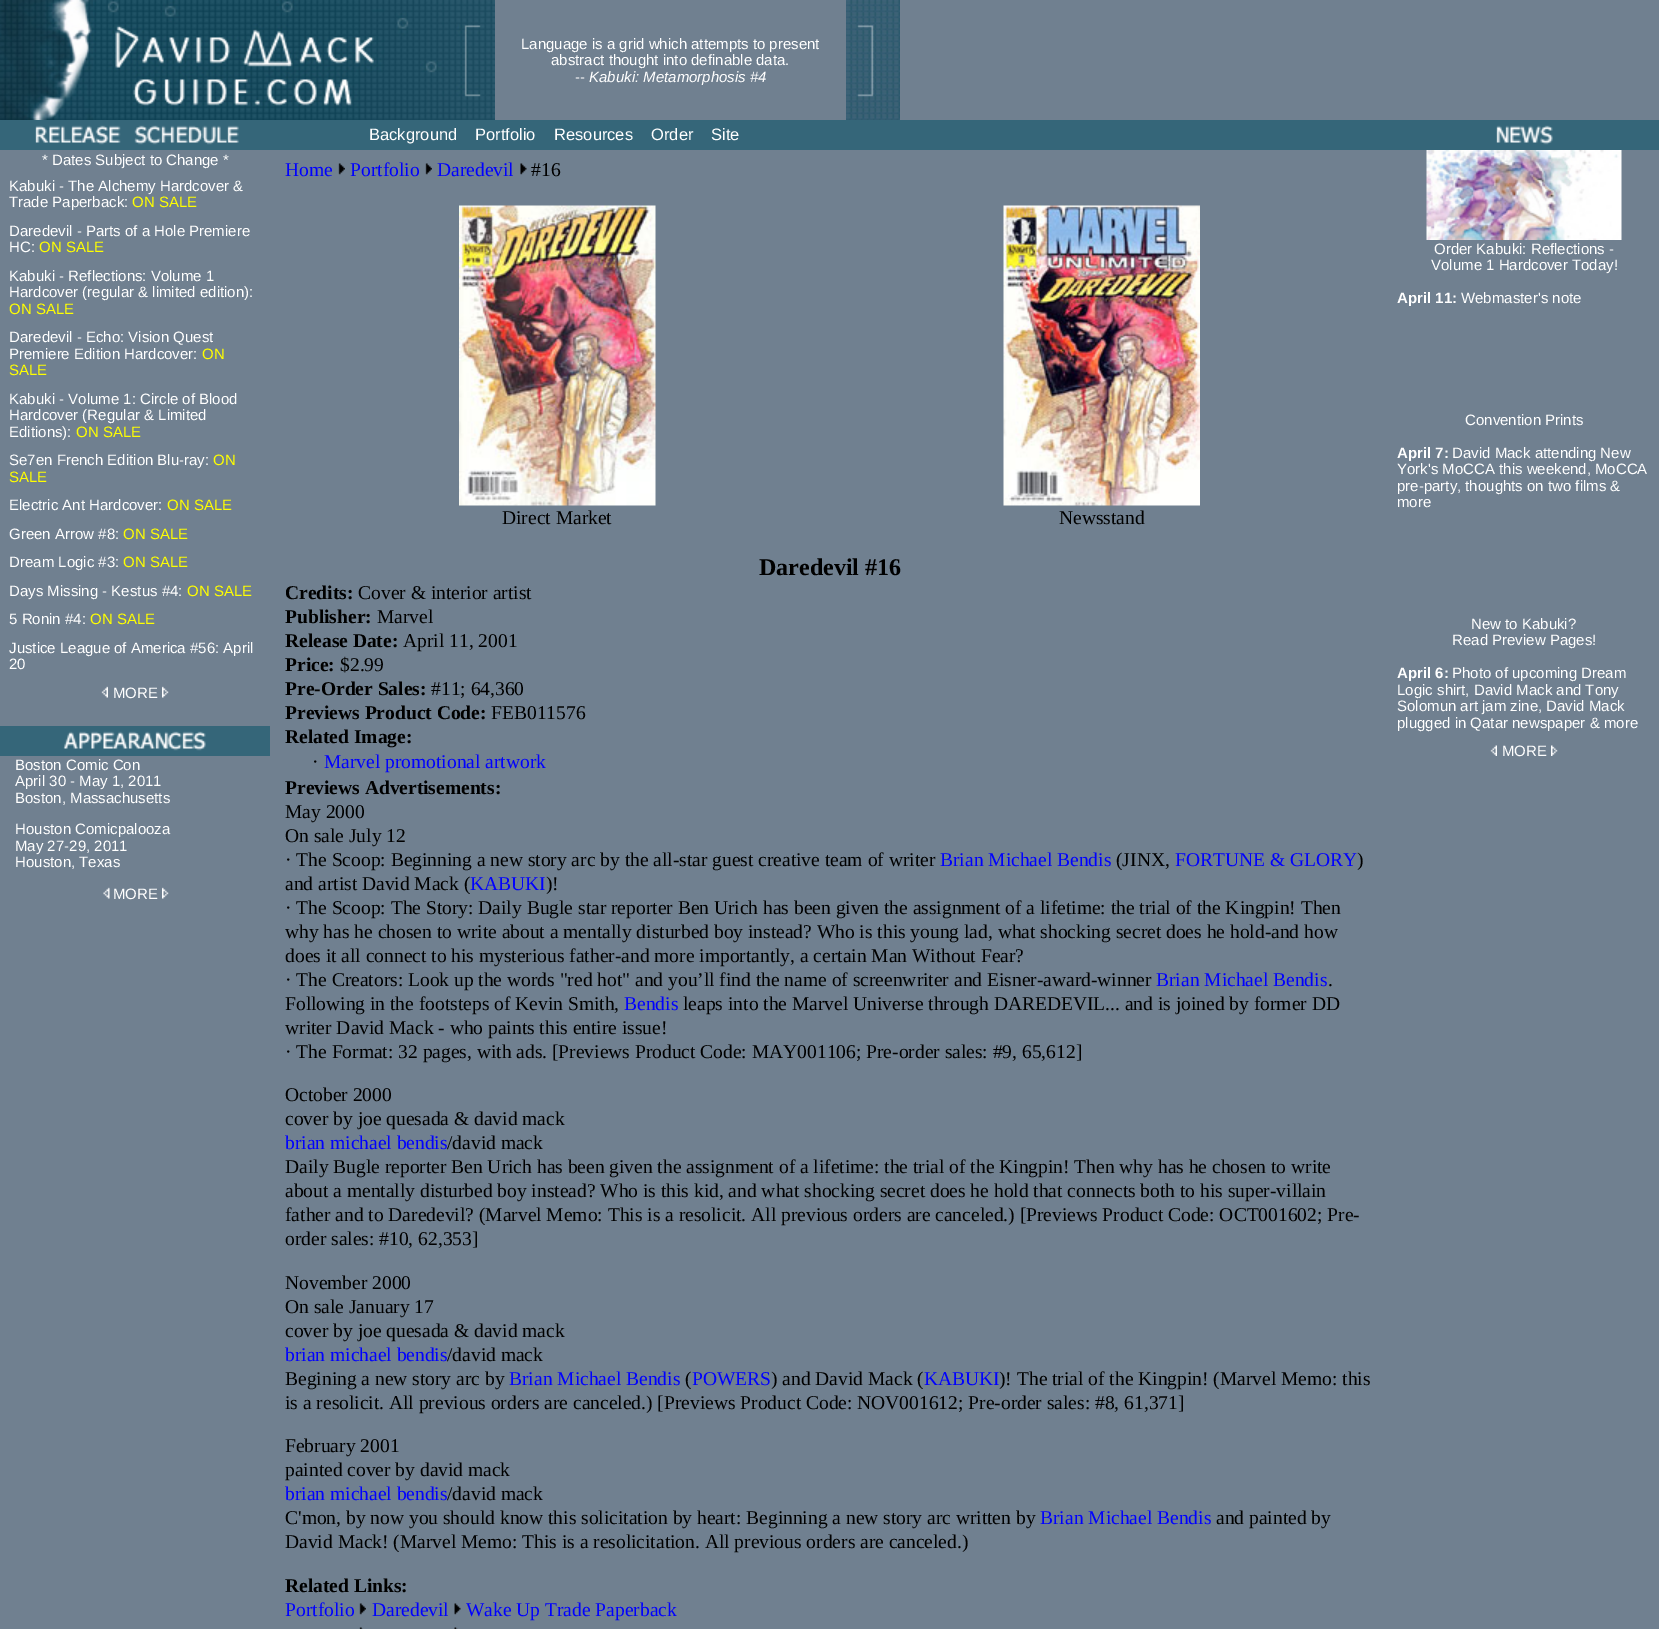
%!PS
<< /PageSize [1659 1629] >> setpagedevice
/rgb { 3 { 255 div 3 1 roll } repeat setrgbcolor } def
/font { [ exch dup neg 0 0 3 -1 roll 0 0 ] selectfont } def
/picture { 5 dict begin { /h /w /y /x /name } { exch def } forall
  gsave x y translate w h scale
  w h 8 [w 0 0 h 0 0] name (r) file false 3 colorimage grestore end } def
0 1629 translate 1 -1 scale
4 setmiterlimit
112 128 144 rgb
0 0 1659 1629 rectfill
(img/1.rgb) 0 0 495 120 picture
(img/2.rgb) 846 0 54 120 picture
53 102 121 rgb
0 120 1659 30 rectfill
(img/3.rgb) 35 125 204 20 picture
(img/4.rgb) 1496 125 57 20 picture
(img/5.rgb) 101 686 7 12 picture
(img/6.rgb) 162 686 7 12 picture
(img/7.rgb) 0 726 270 30 picture
(img/8.rgb) 103 887 7 12 picture
(img/6.rgb) 162 887 7 12 picture
(img/9.rgb) 338 163 7 12 picture
(img/10.rgb) 425 163 7 12 picture
(img/11.rgb) 520 163 7 12 picture
(img/12.rgb) 459 205 197 301 picture
(img/13.rgb) 1003 205 197 301 picture
(img/10.rgb) 359 1603 7 12 picture
(img/14.rgb) 454 1603 7 12 picture
(img/15.rgb) 359 1627 4 2 picture
(img/16.rgb) 454 1627 4 2 picture
(img/17.rgb) 1426 150 196 90 picture
(img/18.rgb) 1490 745 7 11 picture
(img/19.rgb) 1551 745 7 11 picture
/LiberationSans-Regular 15 font
255 255 255 rgb
[
  [(Language is a grid which attempts to present) 521 49]
  [(abstract thought into definable data.) 551 65]
  [(--) 575 82]
] { aload pop moveto show } forall
/LiberationSans-Italic 15 font
589 82 moveto (Kabuki: Metamorphosis #4) show
/LiberationSans-Regular 15 font
[
  [(* Dates Subject to Change *) 42 165]
  [(Kabuki - The Alchemy Hardcover &) 9 191]
  [(Trade Paperback:) 9 207]
] { aload pop moveto show } forall
255 255 0 rgb
132 207 moveto (ON SALE) show
255 255 255 rgb
9 236 moveto (Daredevil - Parts of a Hole Premiere) show
9 252 moveto (HC:) show
255 255 0 rgb
39 252 moveto (ON SALE) show
255 255 255 rgb
9 281 moveto (Kabuki - Reflections: Volume 1) show
9 297 moveto (Hardcover \(regular & limited edition\):) show
255 255 0 rgb
9 314 moveto (ON SALE) show
255 255 255 rgb
9 342 moveto (Daredevil - Echo: Vision Quest) show
9 359 moveto (Premiere Edition Hardcover:) show
255 255 0 rgb
202 359 moveto (ON) show
9 375 moveto (SALE) show
255 255 255 rgb
[
  [(Kabuki - Volume 1: Circle of Blood) 9 404]
  [(Hardcover \(Regular & Limited) 9 420]
  [(Editions\):) 9 437]
] { aload pop moveto show } forall
255 255 0 rgb
76 437 moveto (ON SALE) show
255 255 255 rgb
9 465 moveto (Se7en French Edition Blu-ray:) show
255 255 0 rgb
213 465 moveto (ON) show
9 482 moveto (SALE) show
255 255 255 rgb
9 510 moveto (Electric Ant Hardcover:) show
255 255 0 rgb
167 510 moveto (ON SALE) show
255 255 255 rgb
9 539 moveto (Green Arrow #8:) show
255 255 0 rgb
123 539 moveto (ON SALE) show
255 255 255 rgb
9 567 moveto (Dream Logic #3:) show
255 255 0 rgb
123 567 moveto (ON SALE) show
255 255 255 rgb
9 596 moveto (Days Missing - Kestus #4:) show
255 255 0 rgb
187 596 moveto (ON SALE) show
255 255 255 rgb
9 624 moveto (5 Ronin #4:) show
255 255 0 rgb
90 624 moveto (ON SALE) show
255 255 255 rgb
[
  [(Justice League of America #56: April) 9 653]
  [(20) 9 669]
  [(MORE) 113 698]
  [(Boston Comic Con) 15 770]
  [(April 30 - May 1, 2011) 15 786]
  [(Boston, Massachusetts) 15 803]
  [(Houston Comicpalooza) 15 834]
  [(May 27-29, 2011) 15 851]
  [(Houston, Texas) 15 867]
  [(MORE) 113 899]
] { aload pop moveto show } forall
/LiberationSerif-Regular 19.5 font
0 0 255 rgb
[
  [(Home) 285 176]
  [(Portfolio) 350 176]
  [(Daredevil) 437 176]
] { aload pop moveto show } forall
0 0 0 rgb
[
  [(#16) 531 176]
  [(Direct Market) 502 524]
  [(Newsstand) 1059 524]
] { aload pop moveto show } forall
/LiberationSerif-Bold 24 font
759 575 moveto (Daredevil #16) show
/LiberationSerif-Bold 19.5 font
285 599 moveto (Credits:) show
/LiberationSerif-Regular 19.5 font
358 599 moveto (Cover & interior artist) show
/LiberationSerif-Bold 19.5 font
285 623 moveto (Publisher:) show
/LiberationSerif-Regular 19.5 font
377 623 moveto (Marvel) show
/LiberationSerif-Bold 19.5 font
285 647 moveto (Release Date:) show
/LiberationSerif-Regular 19.5 font
403 647 moveto (April 11, 2001) show
/LiberationSerif-Bold 19.5 font
285 671 moveto (Price:) show
/LiberationSerif-Regular 19.5 font
340 671 moveto ($2.99) show
/LiberationSerif-Bold 19.5 font
285 695 moveto (Pre-Order Sales:) show
/LiberationSerif-Regular 19.5 font
431 695 moveto (#11; 64,360) show
/LiberationSerif-Bold 19.5 font
285 719 moveto (Previews Product Code:) show
/LiberationSerif-Regular 19.5 font
491 719 moveto (FEB011576) show
/LiberationSerif-Bold 19.5 font
285 743 moveto (Related Image:) show
/LiberationSerif-Regular 19.5 font
312 768 moveto (·) show
0 0 255 rgb
324 768 moveto (Marvel promotional artwork) show
/LiberationSerif-Bold 19.5 font
0 0 0 rgb
285 794 moveto (Previews Advertisements:) show
/LiberationSerif-Regular 19.5 font
[
  [(May 2000) 285 818]
  [(On sale July 12) 285 842]
  [(· The Scoop: Beginning a new story arc by the all-star guest creative team of writer) 285 866]
] { aload pop moveto show } forall
0 0 255 rgb
940 866 moveto (Brian Michael Bendis) show
0 0 0 rgb
1116 866 moveto (\(JINX,) show
0 0 255 rgb
1175 866 moveto (FORTUNE & GLORY) show
0 0 0 rgb
1357 866 moveto (\)) show
285 890 moveto (and artist David Mack \() show
0 0 255 rgb
470 890 moveto (KABUKI) show
0 0 0 rgb
[
  [(\)!) 546 890]
  [(· The Scoop: The Story: Daily Bugle star reporter Ben Urich has been given the assignment of a lifetime: the trial of the Kingpin! Then) 285 914]
  [(why has he chosen to write about a mentally disturbed boy instead? Who is this young lad, what shocking secret does he hold-and how) 285 938]
  [(does it all connect to his mysterious father-and more importantly, a certain Man Without Fear?) 285 962]
  [(· The Creators: Look up the words "red hot" and you’ll find the name of screenwriter and Eisner-award-winner) 285 986]
] { aload pop moveto show } forall
0 0 255 rgb
1156 986 moveto (Brian Michael Bendis) show
0 0 0 rgb
1328 986 moveto (.) show
285 1010 moveto (Following in the footsteps of Kevin Smith,) show
0 0 255 rgb
624 1010 moveto (Bendis) show
0 0 0 rgb
[
  [(leaps into the Marvel Universe through DAREDEVIL... and is joined by former DD) 683 1010]
  [(writer David Mack - who paints this entire issue!) 285 1034]
  [(· The Format: 32 pages, with ads. [Previews Product Code: MAY001106; Pre-order sales: #9, 65,612]) 285 1058]
  [(October 2000) 285 1101]
  [(cover by joe quesada & david mack) 285 1125]
] { aload pop moveto show } forall
0 0 255 rgb
285 1149 moveto (brian michael bendis) show
0 0 0 rgb
[
  [(/david mack) 447 1149]
  [(Daily Bugle reporter Ben Urich has been given the assignment of a lifetime: the trial of the Kingpin! Then why has he chosen to write) 285 1173]
  [(about a mentally disturbed boy instead? Who is this kid, and what shocking secret does he hold that connects both to his super-villain) 285 1197]
  [(father and to Daredevil? \(Marvel Memo: This is a resolicit. All previous orders are canceled.\) [Previews Product Code: OCT001602; Pre-) 285 1221]
  [(order sales: #10, 62,353]) 285 1245]
  [(November 2000) 285 1289]
  [(On sale January 17) 285 1313]
  [(cover by joe quesada & david mack) 285 1337]
] { aload pop moveto show } forall
0 0 255 rgb
285 1361 moveto (brian michael bendis) show
0 0 0 rgb
447 1361 moveto (/david mack) show
285 1385 moveto (Begining a new story arc by) show
0 0 255 rgb
509 1385 moveto (Brian Michael Bendis) show
0 0 0 rgb
685 1385 moveto (\() show
0 0 255 rgb
692 1385 moveto (POWERS) show
0 0 0 rgb
771 1385 moveto (\) and David Mack \() show
0 0 255 rgb
924 1385 moveto (KABUKI) show
0 0 0 rgb
[
  [(\)! The trial of the Kingpin! \(Marvel Memo: this) 999 1385]
  [(is a resolicit. All previous orders are canceled.\) [Previews Product Code: NOV001612; Pre-order sales: #8, 61,371]) 285 1409]
  [(February 2001) 285 1452]
  [(painted cover by david mack) 285 1476]
] { aload pop moveto show } forall
0 0 255 rgb
285 1500 moveto (brian michael bendis) show
0 0 0 rgb
447 1500 moveto (/david mack) show
285 1524 moveto (C'mon, by now you should know this solicitation by heart: Beginning a new story arc written by) show
0 0 255 rgb
1040 1524 moveto (Brian Michael Bendis) show
0 0 0 rgb
1216 1524 moveto (and painted by) show
285 1548 moveto (David Mack! \(Marvel Memo: This is a resolicitation. All previous orders are canceled.\)) show
/LiberationSerif-Bold 19.5 font
285 1592 moveto (Related Links:) show
/LiberationSerif-Regular 19.5 font
0 0 255 rgb
[
  [(Portfolio) 285 1616]
  [(Daredevil) 372 1616]
  [(Wake Up Trade Paperback) 466 1616]
] { aload pop moveto show } forall
/LiberationSans-Regular 15 font
255 255 255 rgb
1434 254 moveto (Order Kabuki: Reflections -) show
1431 270 moveto (Volume 1 Hardcover Today!) show
/LiberationSans-Bold 15 font
1397 303 moveto (April 11:) show
/LiberationSans-Regular 15 font
1461 303 moveto (Webmaster's note) show
1465 425 moveto (Convention Prints) show
/LiberationSans-Bold 15 font
1397 458 moveto (April 7:) show
/LiberationSans-Regular 15 font
[
  [(David Mack attending New) 1452 458]
  [(York's MoCCA this weekend, MoCCA) 1397 474]
  [(pre-party, thoughts on two films &) 1397 491]
  [(more) 1397 507]
  [(New to Kabuki?) 1471 629]
  [(Read Preview Pages!) 1452 645]
] { aload pop moveto show } forall
/LiberationSans-Bold 15 font
1397 678 moveto (April 6:) show
/LiberationSans-Regular 15 font
[
  [(Photo of upcoming Dream) 1452 678]
  [(Logic shirt, David Mack and Tony) 1397 695]
  [(Solomun art jam zine, David Mack) 1397 711]
  [(plugged in Qatar newspaper & more) 1397 728]
  [(MORE) 1502 756]
] { aload pop moveto show } forall
/LiberationSans-Regular 16.5 font
[
  [(Background) 369 140]
  [(Portfolio) 475 140]
  [(Resources) 554 140]
  [(Order) 651 140]
  [(Site) 711 140]
] { aload pop moveto show } forall
showpage
